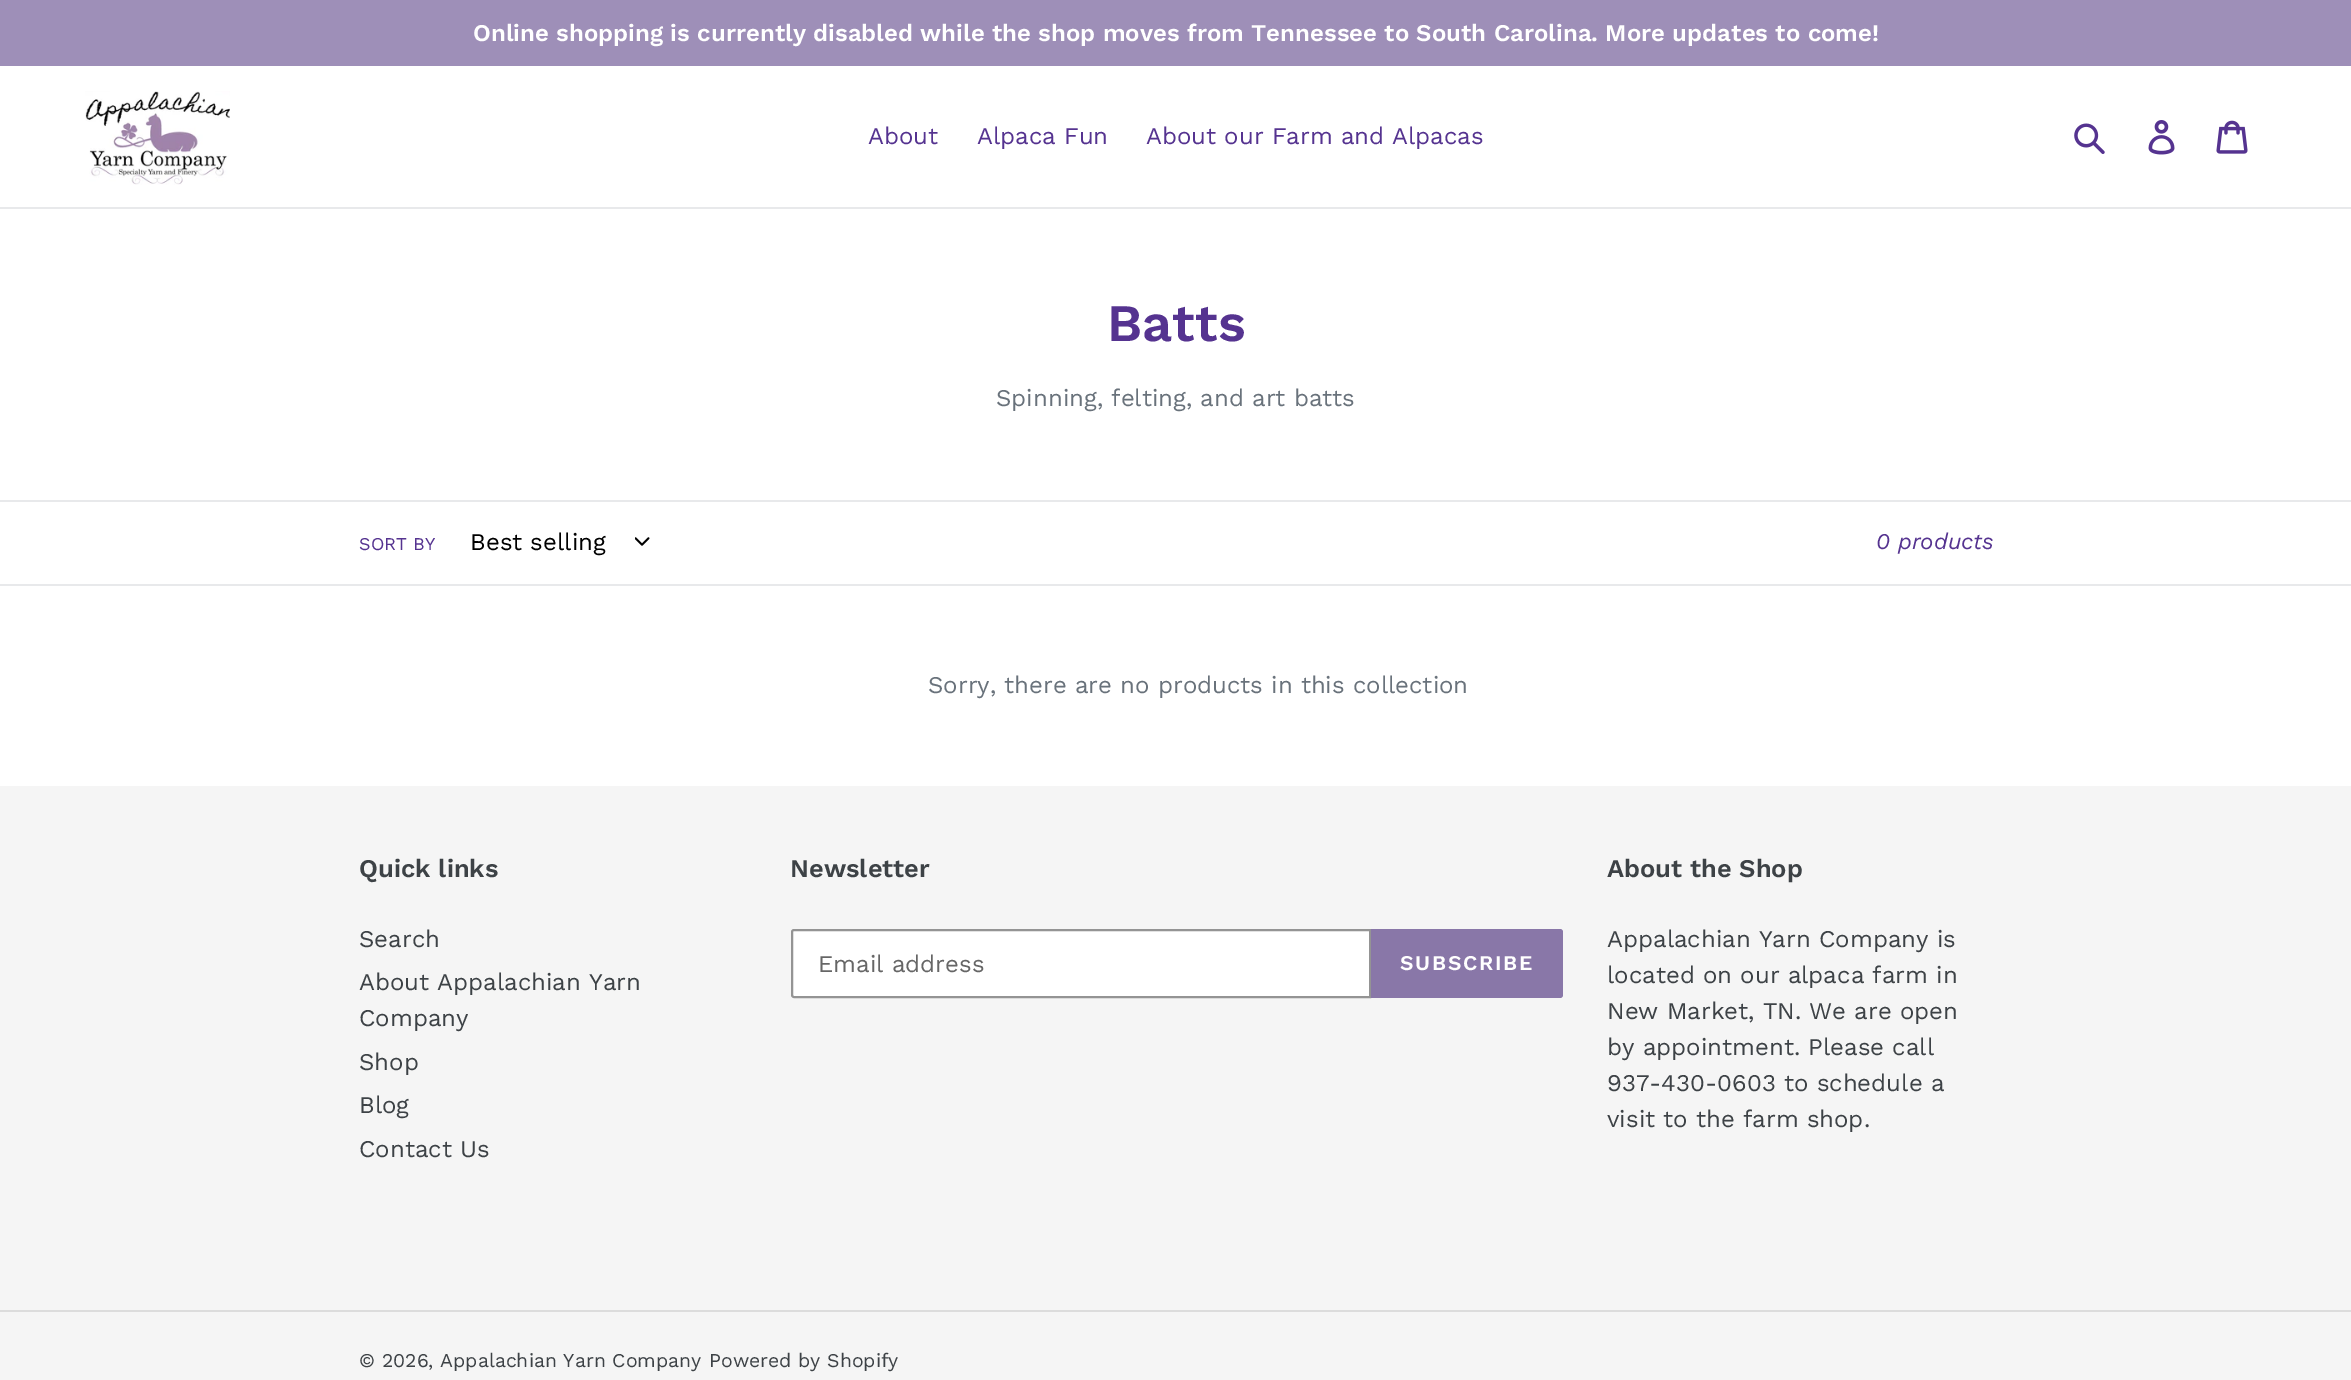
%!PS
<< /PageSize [2351 1380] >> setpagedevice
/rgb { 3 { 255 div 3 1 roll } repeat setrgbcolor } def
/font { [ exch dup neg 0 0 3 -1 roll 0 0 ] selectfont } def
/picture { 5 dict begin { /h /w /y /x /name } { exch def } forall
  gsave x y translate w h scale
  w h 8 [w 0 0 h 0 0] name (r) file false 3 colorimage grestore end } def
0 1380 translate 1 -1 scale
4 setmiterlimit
255 255 255 rgb
0 0 2351 1380 rectfill
158 143 184 rgb
0 0 2351 66 rectfill
232 233 235 rgb
0 207 2351 2 rectfill
(img/1.rgb) 85 91 145 94 picture
(img/2.rgb) 2074 123 31 31 picture
(img/3.rgb) 2148 120 27 35 picture
(img/4.rgb) 2216 120 32 34 picture
0 500 2351 2 rectfill
0 584 2351 2 rectfill
(img/5.rgb) 635 537 15 9 picture
245 245 245 rgb
0 786 2351 594 rectfill
255 255 255 rgb
794 930 moveto 1370 930 lineto 1370 997 lineto 794 997 lineto 793 997 792 996 792 995 curveto 792 932 lineto 792 931 793 930 794 930 curveto closepath gsave fill grestore
148 148 148 rgb
2 setlinewidth
stroke
137 119 168 rgb
1371 929 moveto 1560 929 lineto 1561.5 929 1563 930.5 1563 932 curveto 1563 995 lineto 1563 996.5 1561.5 998 1560 998 curveto 1371 998 lineto closepath fill
220 220 220 rgb
0 1310 2351 2 rectfill
/WorkSans-SemiBold 24 font
255 255 255 rgb
473 41 moveto (Online shopping is currently disabled while the shop moves from Tennessee to South Carolina. More updates to come!) show
/WorkSans-Regular 24 font
85 51 144 rgb
[
  [(About) 868 144]
  [(Alpaca Fun) 977 144]
  [(About our Farm and Alpacas) 1146 144]
] { aload pop moveto show } forall
/WorkSans-SemiBold 52.5 font
1107 341 moveto (Batts) show
/WorkSans-Regular 24 font
105 114 123 rgb
996 406 moveto (Spinning, felting, and art batts) show
/WorkSans-Regular 18 font
85 51 144 rgb
359 550 moveto (SORT BY) show
/WorkSans-Regular 24 font
0 0 0 rgb
470 550 moveto (Best selling) show
/WorkSans-Italic 22.5 font
85 51 144 rgb
1876 549 moveto (0 products) show
/WorkSans-Regular 24 font
105 114 123 rgb
928 693 moveto (Sorry, there are no products in this collection) show
/WorkSans-SemiBold 25.5 font
61 66 70 rgb
359 877 moveto (Quick links) show
/WorkSans-Regular 24 font
[
  [(Search) 359 947]
  [(About Appalachian Yarn) 359 990]
  [(Company) 359 1026]
  [(Shop) 359 1070]
  [(Blog) 359 1113]
  [(Contact Us) 359 1157]
] { aload pop moveto show } forall
/WorkSans-SemiBold 25.5 font
790 877 moveto (Newsletter) show
/WorkSans-Regular 24 font
102 102 102 rgb
818 972 moveto (Email address) show
/WorkSans-SemiBold 21 font
255 255 255 rgb
1400 970 moveto 1.75 0 (SUBSCRIBE) ashow
/WorkSans-SemiBold 25.5 font
61 66 70 rgb
1607 877 moveto (About the Shop) show
/WorkSans-Regular 24 font
[
  [(Appalachian Yarn Company is) 1607 947]
  [(located on our alpaca farm in) 1607 983]
  [(New Market, TN. We are open) 1607 1019]
  [(by appointment. Please call) 1607 1055]
  [(937-430-0603 to schedule a) 1607 1091]
  [(visit to the farm shop.) 1607 1127]
] { aload pop moveto show } forall
/WorkSans-Regular 19.5 font
359 1367 moveto (© 2026, Appalachian Yarn Company) show
709 1367 moveto (Powered by Shopify) show
showpage
